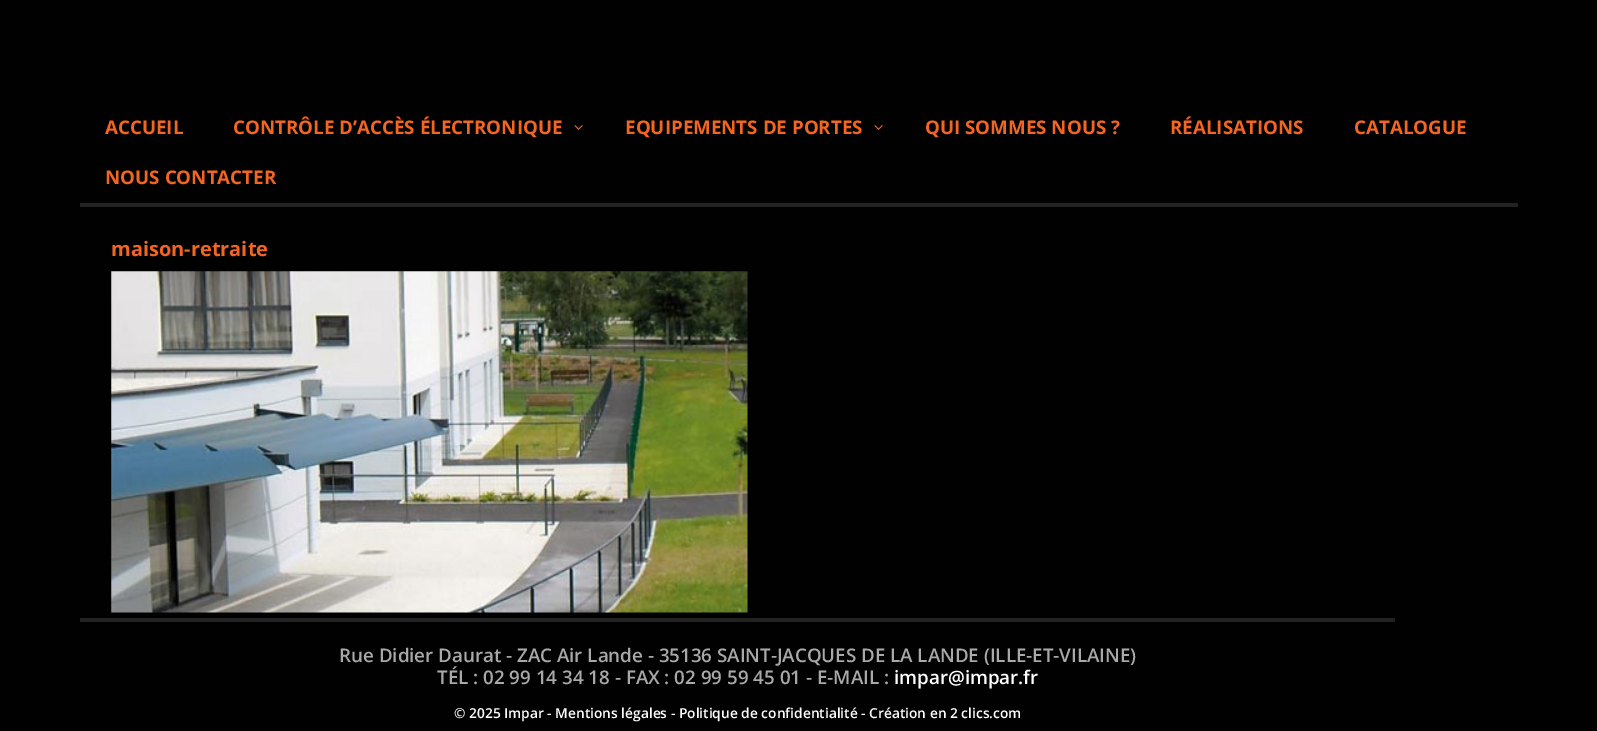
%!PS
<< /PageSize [1597 731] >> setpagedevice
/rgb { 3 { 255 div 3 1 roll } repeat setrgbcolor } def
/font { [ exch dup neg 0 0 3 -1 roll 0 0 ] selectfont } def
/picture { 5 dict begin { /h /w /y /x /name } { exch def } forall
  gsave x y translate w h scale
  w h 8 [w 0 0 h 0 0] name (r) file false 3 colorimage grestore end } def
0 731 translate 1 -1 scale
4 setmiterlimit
1 1 1 rgb
0 0 1597 731 rectfill
34 34 34 rgb
80 203 1438 4 rectfill
(img/1.rgb) 574 125 9 5 picture
(img/1.rgb) 874 125 9 5 picture
(img/2.rgb) 111 271 637 342 picture
80 618 1315 4 rectfill
/OpenSans-Bold 18.75 font
242 101 34 rgb
[
  [(ACCUEIL) 105 134]
  [(CONTRÔLE D’ACCÈS ÉLECTRONIQUE) 233 134]
  [(EQUIPEMENTS DE PORTES) 625 134]
  [(QUI SOMMES NOUS ?) 925 134]
  [(RÉALISATIONS) 1170 134]
  [(CATALOGUE) 1354 134]
  [(NOUS CONTACTER) 105 184]
] { aload pop moveto show } forall
/OpenSans-Bold 20 font
111 256 moveto (maison-retraite) show
/OpenSans-SemiBold 18.75 font
169 169 169 rgb
339 662 moveto (Rue Didier Daurat - ZAC Air Lande - 35136 SAINT-JACQUES DE LA LANDE \(ILLE-ET-VILAINE\)) show
437 684 moveto (TÉL : 02 99 14 34 18 - FAX : 02 99 59 45 01 - E-MAIL :) show
255 255 255 rgb
894 684 moveto (impar@impar.fr) show
/OpenSans-SemiBold 13.75 font
454 718 moveto (© 2025 Impar - Mentions légales - Politique de confidentialité - Création en 2 clics.com) show
showpage
